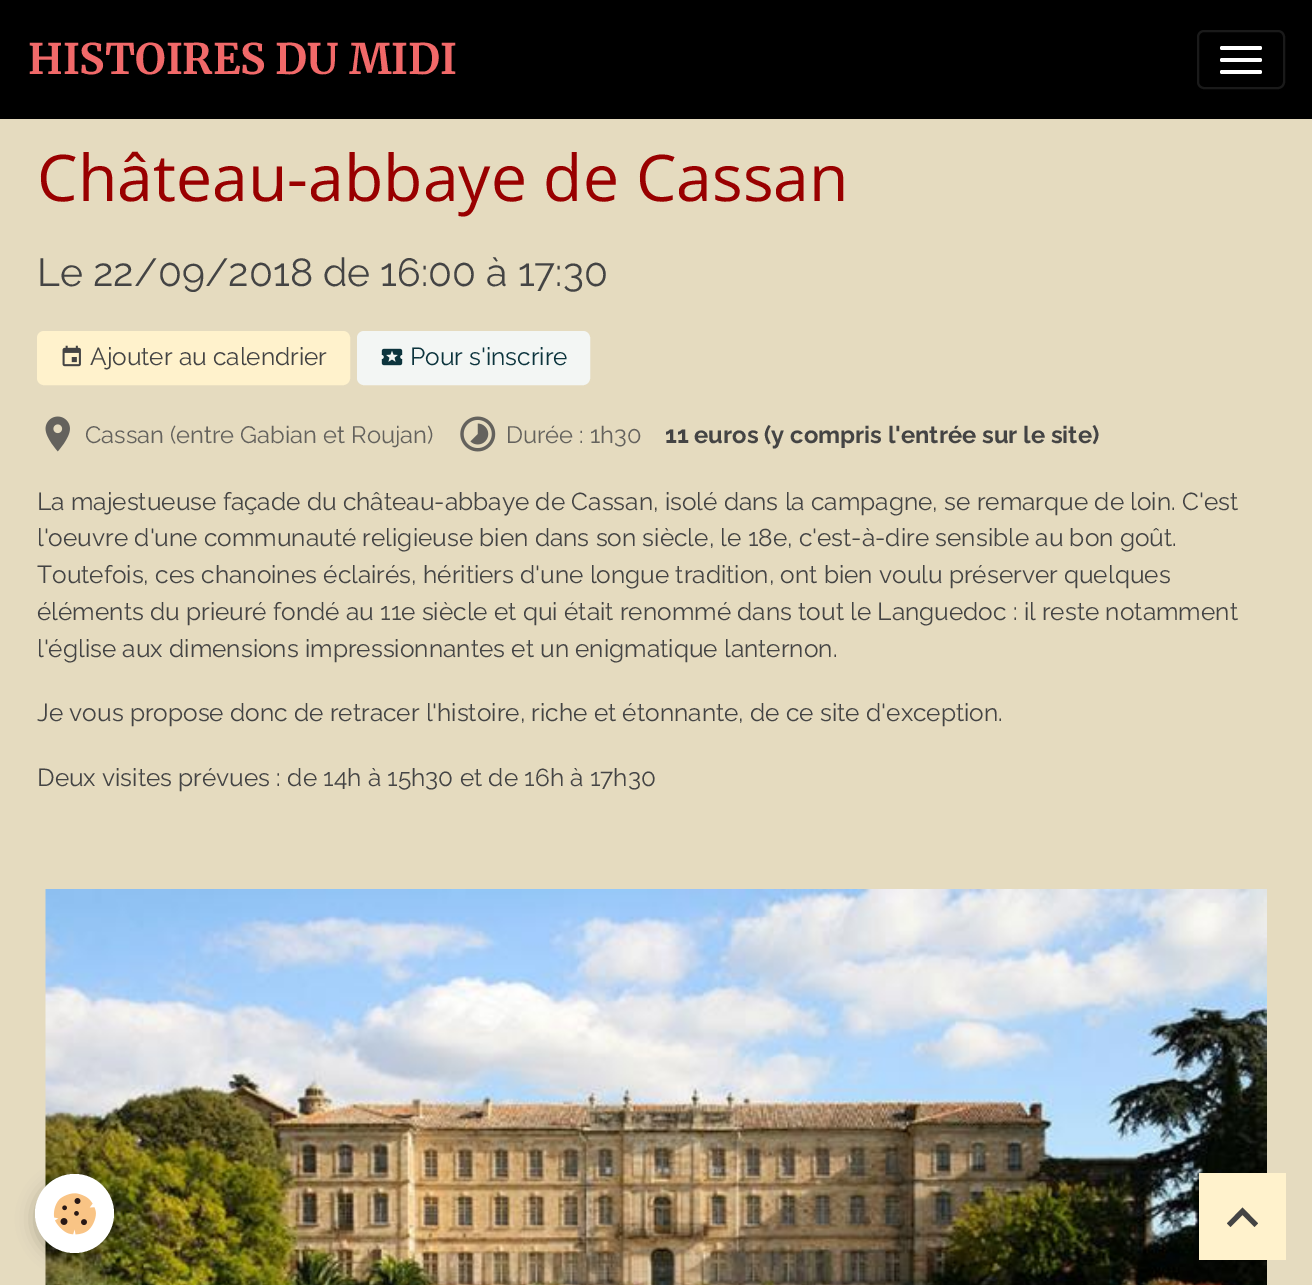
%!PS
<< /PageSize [1312 1285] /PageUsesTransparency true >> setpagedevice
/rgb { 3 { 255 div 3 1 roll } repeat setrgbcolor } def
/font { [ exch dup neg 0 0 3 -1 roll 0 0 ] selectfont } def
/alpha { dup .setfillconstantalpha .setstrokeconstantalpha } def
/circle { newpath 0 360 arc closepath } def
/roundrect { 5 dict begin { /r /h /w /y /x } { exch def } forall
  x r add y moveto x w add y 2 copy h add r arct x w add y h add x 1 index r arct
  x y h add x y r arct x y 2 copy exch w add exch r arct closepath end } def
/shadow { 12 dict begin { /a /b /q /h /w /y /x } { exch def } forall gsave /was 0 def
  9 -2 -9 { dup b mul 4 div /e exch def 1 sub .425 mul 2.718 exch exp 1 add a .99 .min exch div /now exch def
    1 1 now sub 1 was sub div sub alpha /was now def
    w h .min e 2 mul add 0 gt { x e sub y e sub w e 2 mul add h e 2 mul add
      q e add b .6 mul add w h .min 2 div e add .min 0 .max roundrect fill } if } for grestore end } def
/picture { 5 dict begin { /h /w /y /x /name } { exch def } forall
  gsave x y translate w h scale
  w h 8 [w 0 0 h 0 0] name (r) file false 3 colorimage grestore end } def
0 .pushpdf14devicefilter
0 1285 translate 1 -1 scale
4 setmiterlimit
229 219 191 rgb
0 0 1312 1285 rectfill
0 0 0 rgb
0 0 1312 119 rectfill
26 26 26 rgb
2 setlinewidth
1198 31 86 57 6 roundrect stroke
255 255 255 rgb
1220 46 42 4 2 roundrect fill
1220 58 42 4 2 roundrect fill
1220 70 42 4 2 roundrect fill
255 242 204 rgb
38 332 311 52 6 roundrect gsave fill grestore
stroke
(img/1.rgb) 62 345 19 22 picture
243 246 244 rgb
358 332 231 52 6 roundrect gsave fill grestore
stroke
(img/2.rgb) 381 348 22 18 picture
(img/3.rgb) 45 416 25 36 picture
(img/4.rgb) 460 416 36 36 picture
(img/5.rgb) 45 889 1222 396 picture
0 0 0 rgb
35 1180 79 78 39 9 0.24 shadow
255 255 255 rgb
74.5 1213.5 39.5 circle fill
(img/6.rgb) 53 1193 43 42 picture
255 242 204 rgb
1199 1173 87 87 rectfill
68 68 68 rgb
1242.5 1207.5 moveto 1258 1223.5 lineto 1254.5 1227 lineto 1242.5 1215 lineto 1230.5 1227 lineto 1227 1223.5 lineto closepath fill
/Merriweather-Bold 42 font
241 105 105 rgb
28 74 moveto (HISTOIRES DU MIDI) show
/OpenSans-Regular 64.4 font
153 0 0 rgb
37 201 moveto (Château-abbaye de Cassan) show
/Raleway-Regular 39.25 font
68 68 68 rgb
37 286 moveto (Le 22/09/2018 de 16:00 à 17:30) show
/Raleway-Regular 24.5 font
90 365 moveto (Ajouter au calendrier) show
12 52 61 rgb
410 365 moveto (Pour s'inscrire) show
/Raleway-Regular 23.75 font
100 98 93 rgb
85 443 moveto (Cassan \(entre Gabian et Roujan\)) show
506 443 moveto (Durée : 1h30) show
/Raleway-Bold 23.75 font
68 68 68 rgb
665 443 moveto (11 euros \(y compris l'entrée sur le site\)) show
/Raleway-Regular 24.5 font
[
  [(La majestueuse façade du château-abbaye de Cassan, isolé dans la campagne, se remarque de loin. C'est) 37 510]
  [(l'oeuvre d'une communauté religieuse bien dans son siècle, le 18e, c'est-à-dire sensible au bon goût.) 37 546]
  [(Toutefois, ces chanoines éclairés, héritiers d'une longue tradition, ont bien voulu préserver quelques) 37 583]
  [(éléments du prieuré fondé au 11e siècle et qui était renommé dans tout le Languedoc : il reste notamment) 37 620]
  [(l'église aux dimensions impressionnantes et un enigmatique lanternon.) 37 657]
  [(Je vous propose donc de retracer l'histoire, riche et étonnante, de ce site d'exception.) 37 721]
  [(Deux visites prévues : de 14h à 15h30 et de 16h à 17h30) 37 786]
] { aload pop moveto show } forall
.poppdf14devicefilter showpage
